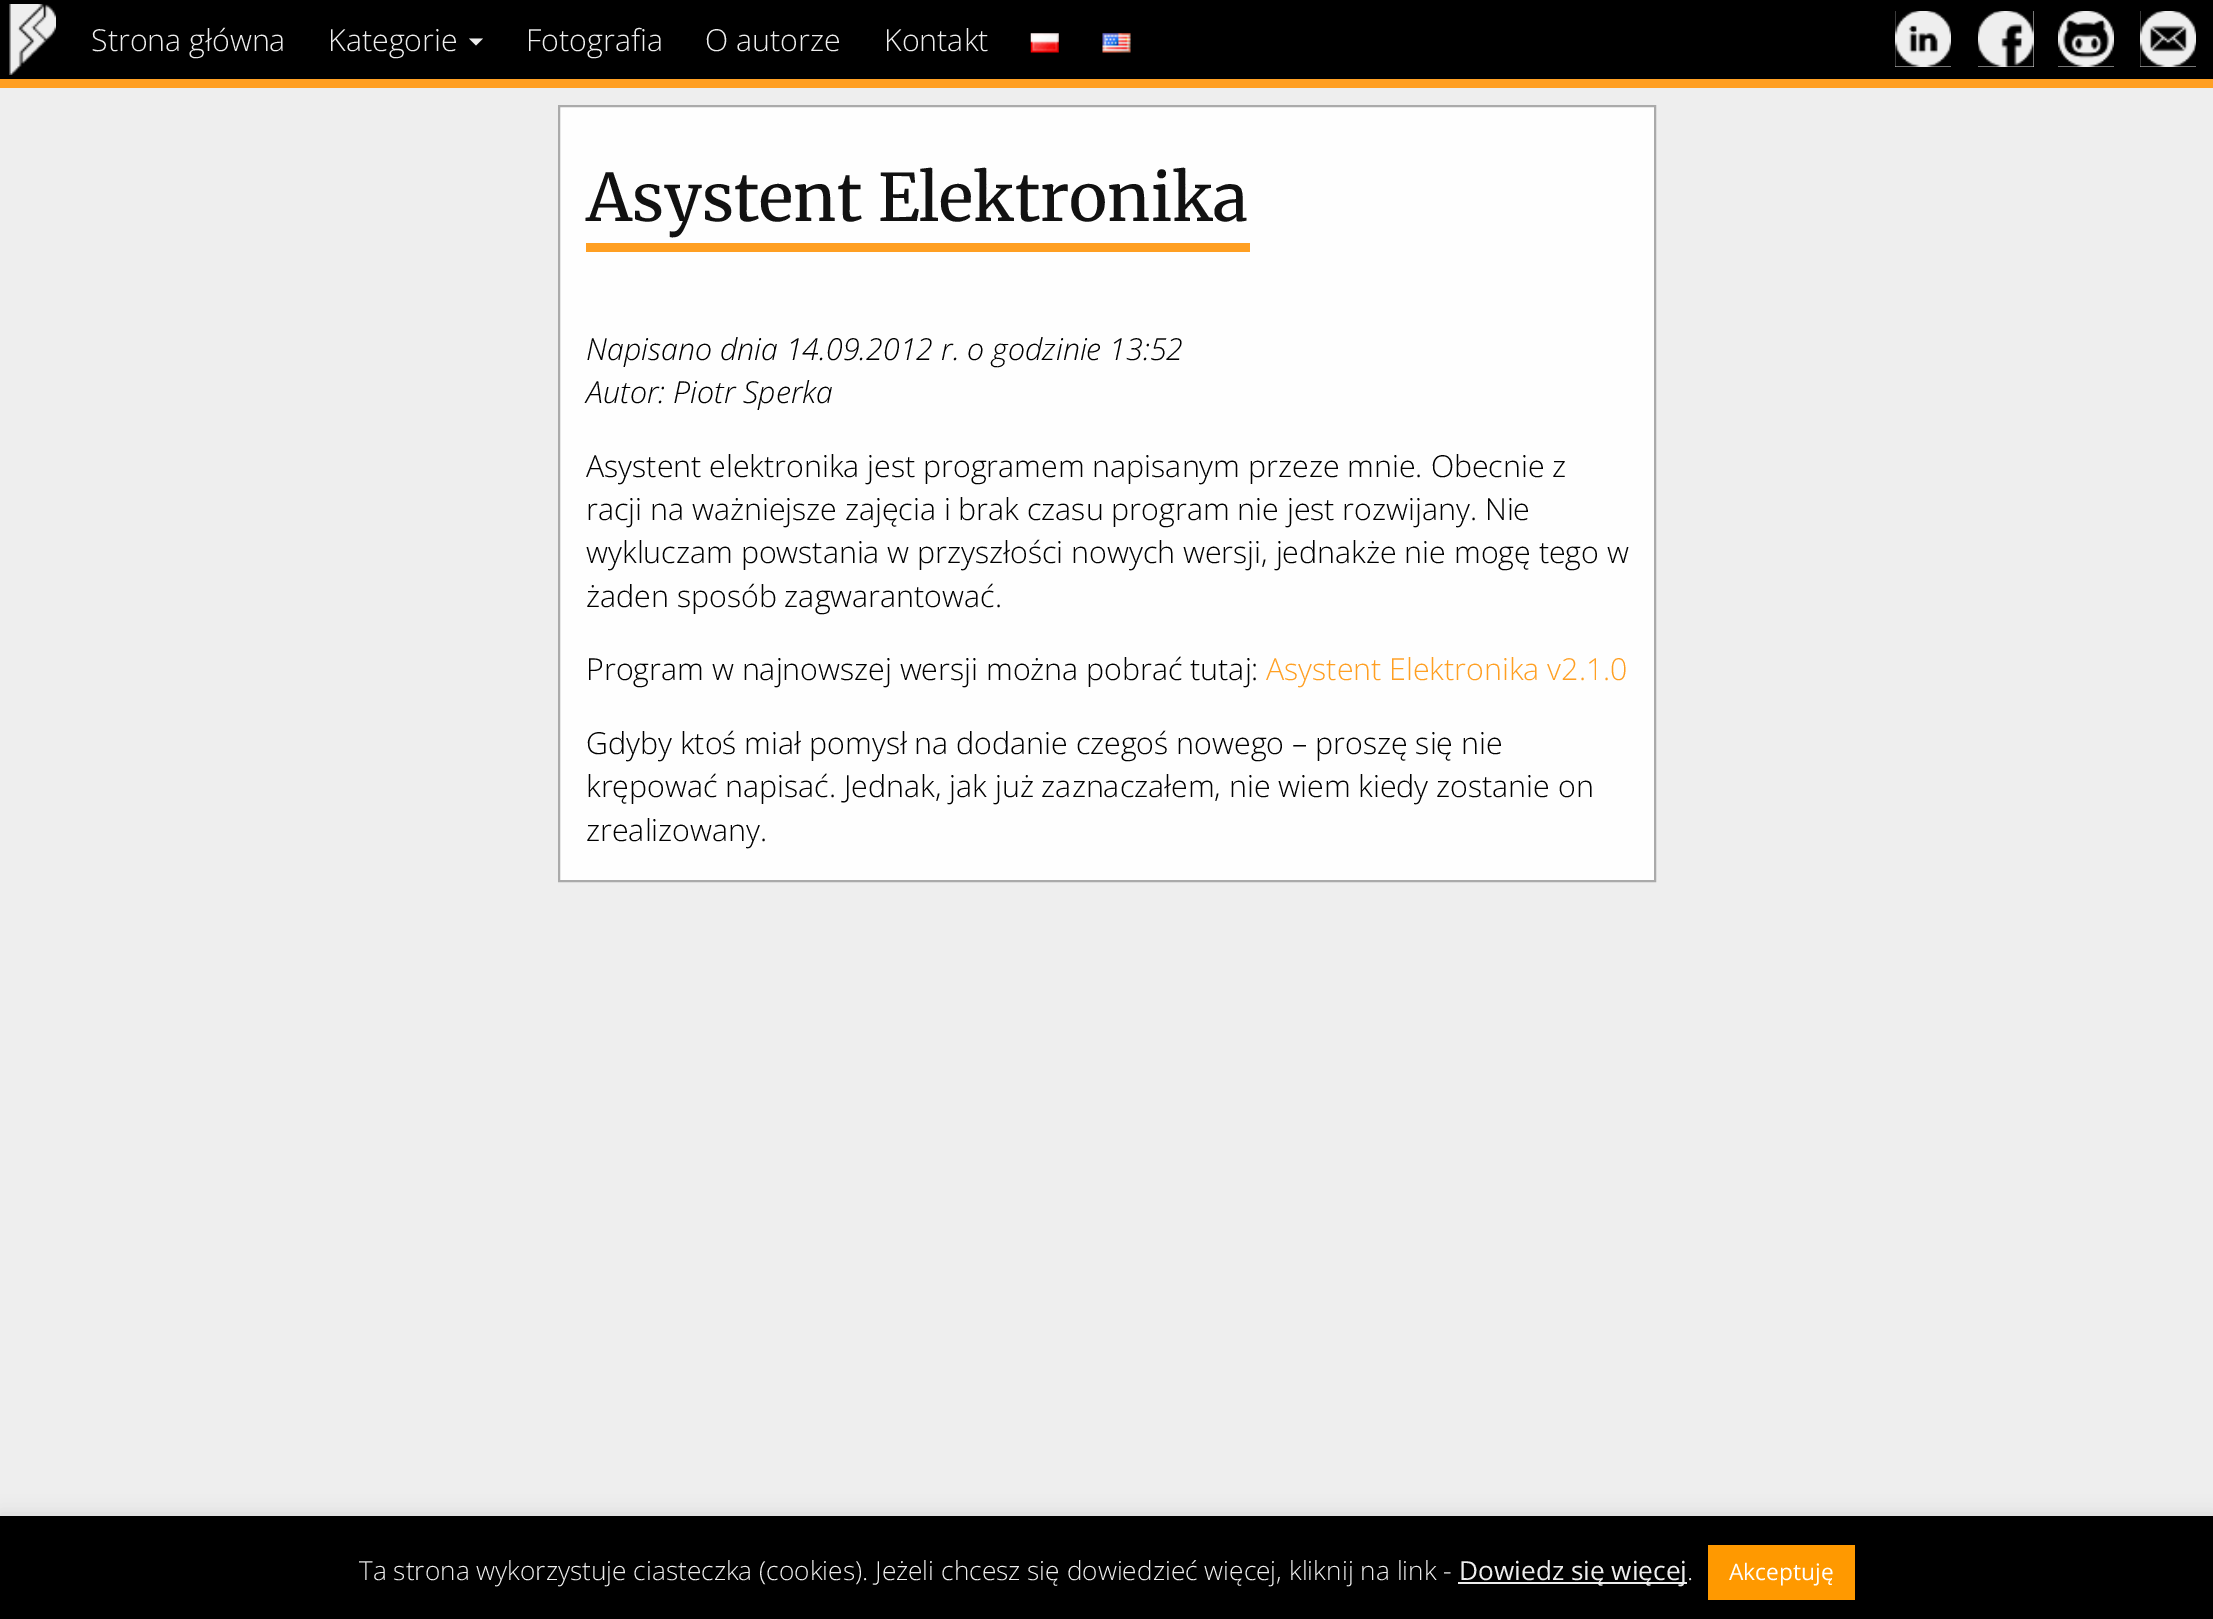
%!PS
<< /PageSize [2213 1619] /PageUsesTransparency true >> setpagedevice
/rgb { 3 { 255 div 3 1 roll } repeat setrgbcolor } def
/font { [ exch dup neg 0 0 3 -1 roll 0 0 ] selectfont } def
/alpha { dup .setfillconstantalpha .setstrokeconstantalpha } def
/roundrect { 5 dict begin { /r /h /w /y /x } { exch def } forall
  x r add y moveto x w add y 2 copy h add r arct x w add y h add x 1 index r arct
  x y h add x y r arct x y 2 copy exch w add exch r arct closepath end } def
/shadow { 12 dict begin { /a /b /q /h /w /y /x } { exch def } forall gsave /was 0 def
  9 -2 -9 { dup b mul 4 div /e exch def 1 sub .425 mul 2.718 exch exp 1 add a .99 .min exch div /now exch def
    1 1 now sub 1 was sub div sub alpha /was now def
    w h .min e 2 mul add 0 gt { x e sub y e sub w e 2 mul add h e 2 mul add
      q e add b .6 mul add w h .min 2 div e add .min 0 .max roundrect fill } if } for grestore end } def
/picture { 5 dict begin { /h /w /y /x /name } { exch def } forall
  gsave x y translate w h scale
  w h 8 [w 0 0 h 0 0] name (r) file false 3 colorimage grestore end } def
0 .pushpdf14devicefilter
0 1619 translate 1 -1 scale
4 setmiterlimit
238 238 238 rgb
0 0 2213 1619 rectfill
0 0 0 rgb
0 0 2213 79 rectfill
238 238 238 rgb
9 4 47 71 rectfill
(img/1.rgb) 9 4 47 71 picture
469 38.5 moveto 483 38.5 lineto 476 45.5 lineto closepath fill
(img/2.rgb) 1030 33 29 20 picture
(img/3.rgb) 1102 33 29 20 picture
1895 11 56 56 rectfill
(img/4.rgb) 1895 11 56 56 picture
1978 11 56 56 rectfill
(img/5.rgb) 1978 11 56 56 picture
2058 11 56 56 rectfill
(img/6.rgb) 2058 11 56 56 picture
2140 11 56 56 rectfill
(img/7.rgb) 2140 11 56 56 picture
255 159 34 rgb
0 79 2213 9 rectfill
254 254 254 rgb
559 106 moveto 1655 106 lineto 1655 881 lineto 559 881 lineto closepath gsave fill grestore
170 170 170 rgb
2 setlinewidth
stroke
255 159 34 rgb
586 243 664 9 rectfill
172 171 171 rgb
0 1514 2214 105 0 9 0.3 shadow
[
  [0 1516 2213 103 0 0 0]
  [1458 1582 229 2 237 237 237]
  [1708 1545 147 55 255 153 0]
] { aload pop rgb rectfill } forall
/OpenSans-Light 30.35 font
238 238 238 rgb
[
  [(Strona główna) 91 51]
  [(Kategorie) 328 51]
  [(Fotografia) 526 51]
  [(O autorze) 705 51]
  [(Kontakt) 884 51]
] { aload pop moveto show } forall
/Merriweather-Regular 65.25 font
17 17 17 rgb
586 221 moveto (Asystent Elektronika) show
/OpenSans-LightItalic 30.35 font
0 0 0 rgb
586 360 moveto (Napisano dnia 14.09.2012 r. o godzinie 13:52) show
586 403 moveto (Autor: Piotr Sperka) show
/OpenSans-Light 30.35 font
[
  [(Asystent elektronika jest programem napisanym przeze mnie. Obecnie z) 586 477]
  [(racji na ważniejsze zajęcia i brak czasu program nie jest rozwijany. Nie) 586 520]
  [(wykluczam powstania w przyszłości nowych wersji, jednakże nie mogę tego w) 586 563]
  [(żaden sposób zagwarantować.) 586 607]
  [(Program w najnowszej wersji można pobrać tutaj:) 586 680]
] { aload pop moveto show } forall
255 159 34 rgb
1266 680 moveto (Asystent Elektronika v2.1.0) show
0 0 0 rgb
[
  [(Gdyby ktoś miał pomysł na dodanie czegoś nowego – proszę się nie) 586 754]
  [(krępować napisać. Jednak, jak już zaznaczałem, nie wiem kiedy zostanie on) 586 797]
  [(zrealizowany.) 586 841]
] { aload pop moveto show } forall
/OpenSans-Light 26.25 font
238 238 238 rgb
359 1580 moveto (Ta strona wykorzystuje ciasteczka \(cookies\). Jeżeli chcesz się dowiedzieć więcej, kliknij na link -) show
/OpenSans-Regular 26.25 font
1459 1580 moveto (Dowiedz się więcej) show
/OpenSans-Light 26.25 font
1687 1580 moveto (.) show
/OpenSans-Regular 22.75 font
255 255 255 rgb
1729 1580 moveto (Akceptuję) show
.poppdf14devicefilter showpage
